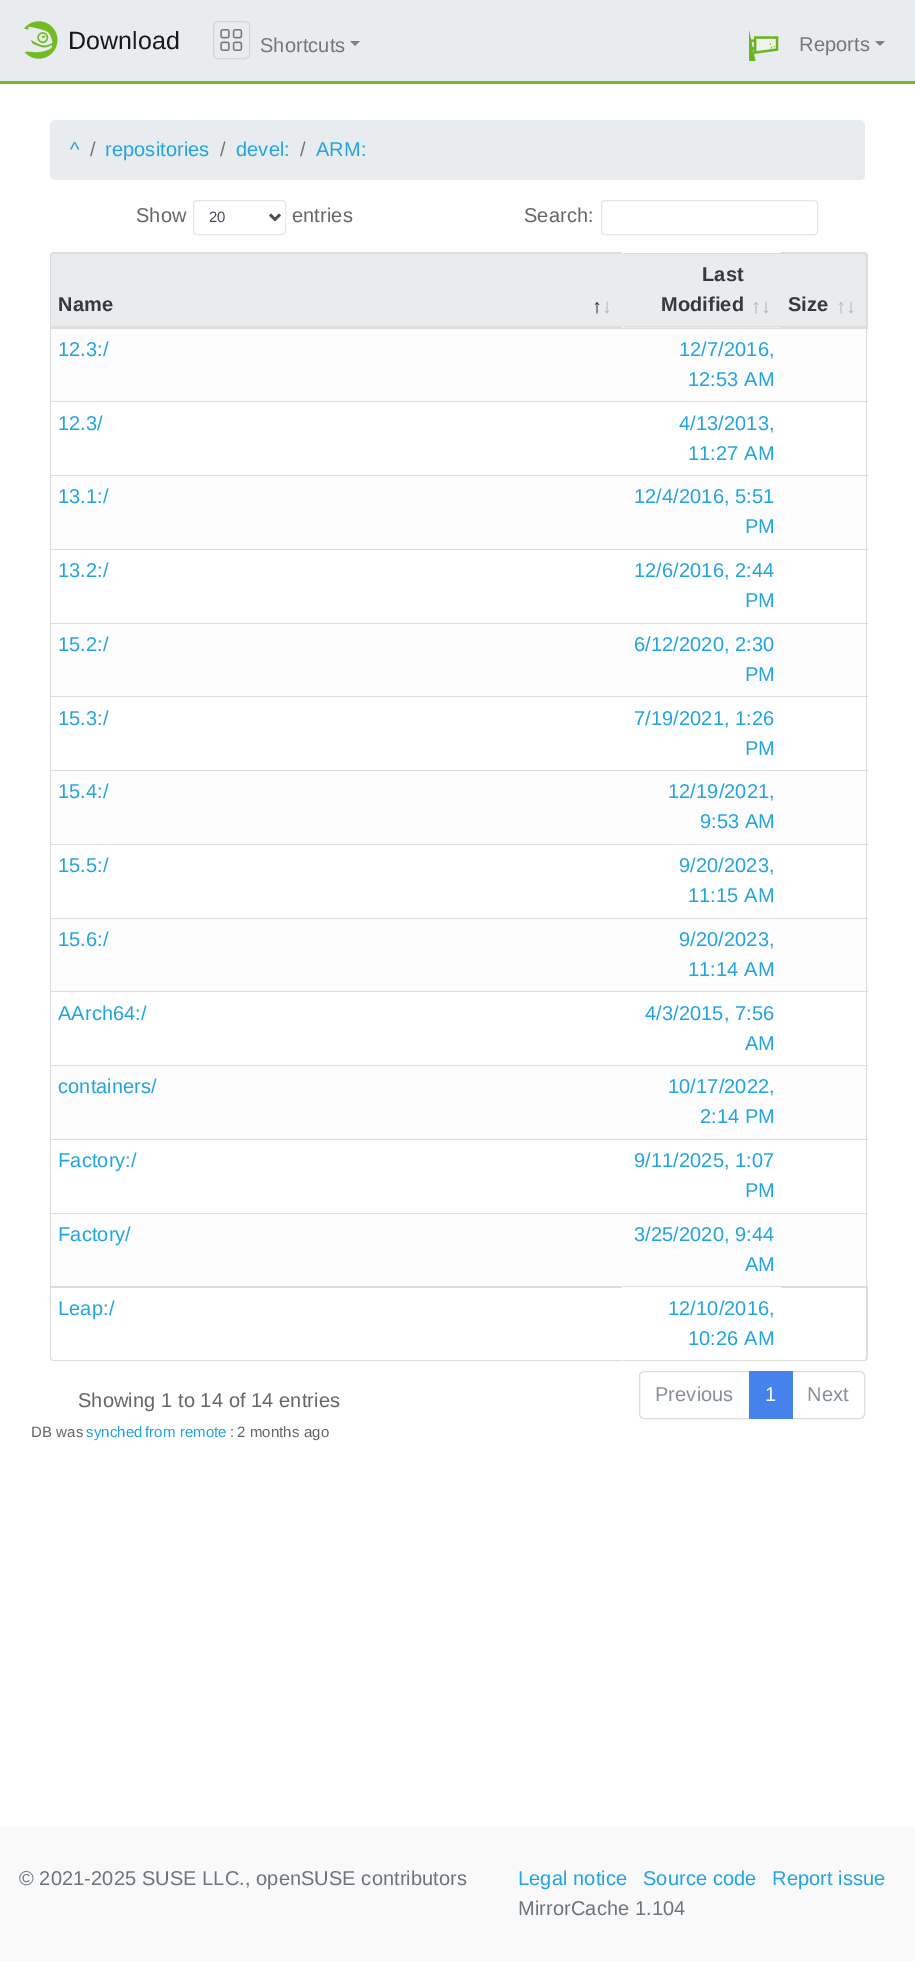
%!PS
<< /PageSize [915 1961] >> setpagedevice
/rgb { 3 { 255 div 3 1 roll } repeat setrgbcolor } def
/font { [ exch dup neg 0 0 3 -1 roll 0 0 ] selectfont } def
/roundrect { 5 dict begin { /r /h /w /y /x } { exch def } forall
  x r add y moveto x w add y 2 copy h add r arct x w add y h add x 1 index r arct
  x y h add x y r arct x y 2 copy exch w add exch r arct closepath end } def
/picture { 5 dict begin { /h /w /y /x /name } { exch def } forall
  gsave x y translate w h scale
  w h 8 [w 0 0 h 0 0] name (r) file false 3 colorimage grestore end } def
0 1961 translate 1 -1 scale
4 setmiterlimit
255 255 255 rgb
0 0 915 1961 rectfill
233 236 239 rgb
0 0 915 81 rectfill
115 186 37 rgb
0 81 915 3 rectfill
(img/1.rgb) 24 21 34 38 picture
210 212 215 rgb
213.5 21.5 36 37 4.5 roundrect stroke
(img/2.rgb) 220 29 23 22 picture
128 128 128 rgb
350 41 moveto 360 41 lineto 355 46 lineto closepath fill
(img/3.rgb) 749 31 30 30 picture
875 41 moveto 885 41 lineto 880 46 lineto closepath fill
233 236 239 rgb
50 120 815 60 5 roundrect fill
230 230 230 rgb
193.5 200.5 92 34 3.5 roundrect stroke
73 80 87 rgb
2.5 setlinewidth
270 214.5 moveto 275 219.5 lineto 280 214.5 lineto stroke
230 230 230 rgb
1 setlinewidth
601.5 200.5 216 34 3.5 roundrect stroke
233 236 239 rgb
53.5 254 moveto 623 254 lineto 623 326 lineto 51 326 lineto 51 256.5 lineto 51 255 52 254 53.5 254 curveto closepath fill
221 221 221 rgb
54 252 moveto 622 252 lineto 622 328 lineto 50 328 lineto 50 256 lineto 50 254 52 252 54 252 curveto closepath 54 254 moveto 622 254 lineto 622 326 lineto 51 326 lineto 51 256 lineto 51 255 52 254 54 254 curveto closepath eofill
[
  [623 254 158 74 233 236 239]
  [623 253 158 1 221 221 221]
  [623 326 158 1 221 221 221]
] { aload pop rgb rectfill } forall
233 236 239 rgb
781 253 moveto 864 253 lineto 866 253 868 255 868 257 curveto 868 328 lineto 781 328 lineto closepath fill
221 221 221 rgb
781 252 moveto 864 252 lineto 866 252 868 254 868 256 curveto 868 328 lineto 781 328 lineto closepath 781 254 moveto 864 254 lineto 865 254 866 255 866 256 curveto 866 326 lineto 781 326 lineto closepath eofill
[
  [51 329 817 72 252 252 252]
  [50 328 818 1 221 221 221]
  [50 328 1 73 221 221 221]
  [866 328 1 73 221 221 221]
  [50 401 818 1 221 221 221]
  [50 401 1 74 221 221 221]
  [866 401 1 74 221 221 221]
  [51 476 817 73 252 252 252]
  [50 475 818 1 221 221 221]
  [50 475 1 74 221 221 221]
  [866 475 1 74 221 221 221]
  [50 549 818 1 221 221 221]
  [50 549 1 74 221 221 221]
  [866 549 1 74 221 221 221]
  [51 624 817 72 252 252 252]
  [50 623 818 1 221 221 221]
  [50 623 1 73 221 221 221]
  [866 623 1 73 221 221 221]
  [50 696 818 1 221 221 221]
  [50 696 1 74 221 221 221]
  [866 696 1 74 221 221 221]
  [51 771 817 73 252 252 252]
  [50 770 818 1 221 221 221]
  [50 770 1 74 221 221 221]
  [866 770 1 74 221 221 221]
  [50 844 818 1 221 221 221]
  [50 844 1 74 221 221 221]
  [866 844 1 74 221 221 221]
  [51 919 817 72 252 252 252]
  [50 918 818 1 221 221 221]
  [50 918 1 73 221 221 221]
  [866 918 1 73 221 221 221]
  [50 991 818 1 221 221 221]
  [50 991 1 74 221 221 221]
  [866 991 1 74 221 221 221]
  [51 1066 817 73 252 252 252]
  [50 1065 818 1 221 221 221]
  [50 1065 1 74 221 221 221]
  [866 1065 1 74 221 221 221]
  [50 1139 818 1 221 221 221]
  [50 1139 1 74 221 221 221]
  [866 1139 1 74 221 221 221]
  [51 1214 817 72 252 252 252]
  [50 1213 818 1 221 221 221]
  [50 1213 1 73 221 221 221]
  [866 1213 1 73 221 221 221]
] { aload pop rgb rectfill } forall
50 1286 moveto 622 1286 lineto 622 1361 lineto 54 1361 lineto 52 1361 50 1359 50 1357 curveto closepath 51 1288 moveto 622 1288 lineto 622 1360 lineto 54 1360 lineto 52 1360 51 1359 51 1357 curveto closepath eofill
623 1286 158 1 rectfill
623 1360 158 1 rectfill
781 1286 moveto 868 1286 lineto 868 1357 lineto 868 1359 866 1361 864 1361 curveto 781 1361 lineto closepath 781 1288 moveto 866 1288 lineto 866 1357 lineto 866 1359 865 1360 864 1360 curveto 781 1360 lineto closepath eofill
644 1371.5 moveto 749.5 1371.5 lineto 749.5 1418.5 lineto 644 1418.5 lineto 641.5 1418.5 639.5 1416.5 639.5 1414 curveto 639.5 1376 lineto 639.5 1373.5 641.5 1371.5 644 1371.5 curveto closepath stroke
791.5 1371.5 moveto 860 1371.5 lineto 862.5 1371.5 864.5 1373.5 864.5 1376 curveto 864.5 1414 lineto 864.5 1416.5 862.5 1418.5 860 1418.5 curveto 791.5 1418.5 lineto closepath stroke
69 130 236 rgb
749 1371 44 48 rectfill
249 249 249 rgb
0 1826 915 135 rectfill
/LiberationSans-Regular 25 font
23 24 24 rgb
68 49 moveto 0.1 0 (Download) ashow
/LiberationSans-Regular 20 font
117 118 120 rgb
260 52 moveto 0.1 0 (Shortcuts) ashow
799 51 moveto 0.1 0 (Reports) ashow
33 164 223 rgb
70 156 moveto 0.1 0 (^) ashow
108 117 125 rgb
90 156 moveto 0.1 0 (/) ashow
33 164 223 rgb
105 156 moveto 0.1 0 (repositories) ashow
108 117 125 rgb
220 156 moveto 0.1 0 (/) ashow
33 164 223 rgb
236 156 moveto 0.1 0 (devel:) ashow
108 117 125 rgb
300 156 moveto 0.1 0 (/) ashow
33 164 223 rgb
316 156 moveto 0.1 0 (ARM:) ashow
102 102 102 rgb
136 222 moveto 0.1 0 (Show) ashow
/LiberationSans-Regular 15 font
73 80 87 rgb
209 222 moveto (20) show
/LiberationSans-Regular 20 font
102 102 102 rgb
292 222 moveto 0.1 0 (entries) ashow
524 222 moveto 0.1 0 (Search:) ashow
/LiberationSans-Bold 20 font
52 58 64 rgb
58 311 moveto 0.1 0 (Name) ashow
592 313 moveto 0.1 0 (↑) ashow
179 183 187 rgb
602 313 moveto 0.1 0 (↓) ashow
52 58 64 rgb
702 281 moveto 0.1 0 (Last) ashow
661 311 moveto 0.1 0 (Modified) ashow
179 183 187 rgb
751 313 moveto 0.1 0 (↑↓) ashow
52 58 64 rgb
788 311 moveto 0.1 0 (Size) ashow
179 183 187 rgb
836 313 moveto 0.1 0 (↑↓) ashow
/LiberationSans-Regular 20 font
33 164 223 rgb
58 356 moveto 0.1 0 (12.3:/) ashow
679 356 moveto 0.1 0 (12/7/2016,) ashow
688 386 moveto 0.1 0 (12:53 AM) ashow
58 430 moveto 0.1 0 (12.3/) ashow
679 430 moveto 0.1 0 (4/13/2013,) ashow
688 460 moveto 0.1 0 (11:27 AM) ashow
58 503 moveto 0.1 0 (13.1:/) ashow
634 503 moveto 0.1 0 (12/4/2016, 5:51) ashow
745 533 moveto 0.1 0 (PM) ashow
58 577 moveto 0.1 0 (13.2:/) ashow
634 577 moveto 0.1 0 (12/6/2016, 2:44) ashow
745 607 moveto 0.1 0 (PM) ashow
58 651 moveto 0.1 0 (15.2:/) ashow
634 651 moveto 0.1 0 (6/12/2020, 2:30) ashow
745 681 moveto 0.1 0 (PM) ashow
58 725 moveto 0.1 0 (15.3:/) ashow
634 725 moveto 0.1 0 (7/19/2021, 1:26) ashow
745 755 moveto 0.1 0 (PM) ashow
58 798 moveto 0.1 0 (15.4:/) ashow
668 798 moveto 0.1 0 (12/19/2021,) ashow
700 828 moveto 0.1 0 (9:53 AM) ashow
58 872 moveto 0.1 0 (15.5:/) ashow
679 872 moveto 0.1 0 (9/20/2023,) ashow
688 902 moveto 0.1 0 (11:15 AM) ashow
58 946 moveto 0.1 0 (15.6:/) ashow
679 946 moveto 0.1 0 (9/20/2023,) ashow
688 976 moveto 0.1 0 (11:14 AM) ashow
58 1020 moveto 0.1 0 (AArch64:/) ashow
645 1020 moveto 0.1 0 (4/3/2015, 7:56) ashow
745 1050 moveto 0.1 0 (AM) ashow
58 1093 moveto 0.1 0 (containers/) ashow
668 1093 moveto 0.1 0 (10/17/2022,) ashow
700 1123 moveto 0.1 0 (2:14 PM) ashow
58 1167 moveto 0.1 0 (Factory:/) ashow
634 1167 moveto 0.1 0 (9/11/2025, 1:07) ashow
745 1197 moveto 0.1 0 (PM) ashow
58 1241 moveto 0.1 0 (Factory/) ashow
634 1241 moveto 0.1 0 (3/25/2020, 9:44) ashow
745 1271 moveto 0.1 0 (AM) ashow
58 1315 moveto 0.1 0 (Leap:/) ashow
668 1315 moveto 0.1 0 (12/10/2016,) ashow
688 1345 moveto 0.1 0 (10:26 AM) ashow
102 102 102 rgb
78 1407 moveto 0.1 0 (Showing 1 to 14 of 14 entries) ashow
134 142 150 rgb
655 1401 moveto 0.1 0 (Previous) ashow
255 255 255 rgb
765 1401 moveto 0.1 0 (1) ashow
134 142 150 rgb
807 1401 moveto 0.1 0 (Next) ashow
/LiberationSans-Regular 15 font
102 102 102 rgb
31 1437 moveto 0.1 0 (DB was) ashow
33 164 223 rgb
86 1437 moveto 0.1 0 (synched) ashow
145 1437 moveto 0.1 0 (from remote) ashow
102 102 102 rgb
230 1437 moveto 0.1 0 (:) ashow
237 1437 moveto 0.1 0 (2 months ago) ashow
/LiberationSans-Regular 20 font
108 117 125 rgb
19 1885 moveto 0.1 0 (© 2021-2025 SUSE LLC., openSUSE contributors) ashow
33 164 223 rgb
518 1885 moveto 0.1 0 (Legal notice) ashow
643 1885 moveto 0.1 0 (Source code) ashow
772 1885 moveto 0.1 0 (Report issue) ashow
108 117 125 rgb
518 1915 moveto 0.1 0 (MirrorCache 1.104) ashow
showpage
